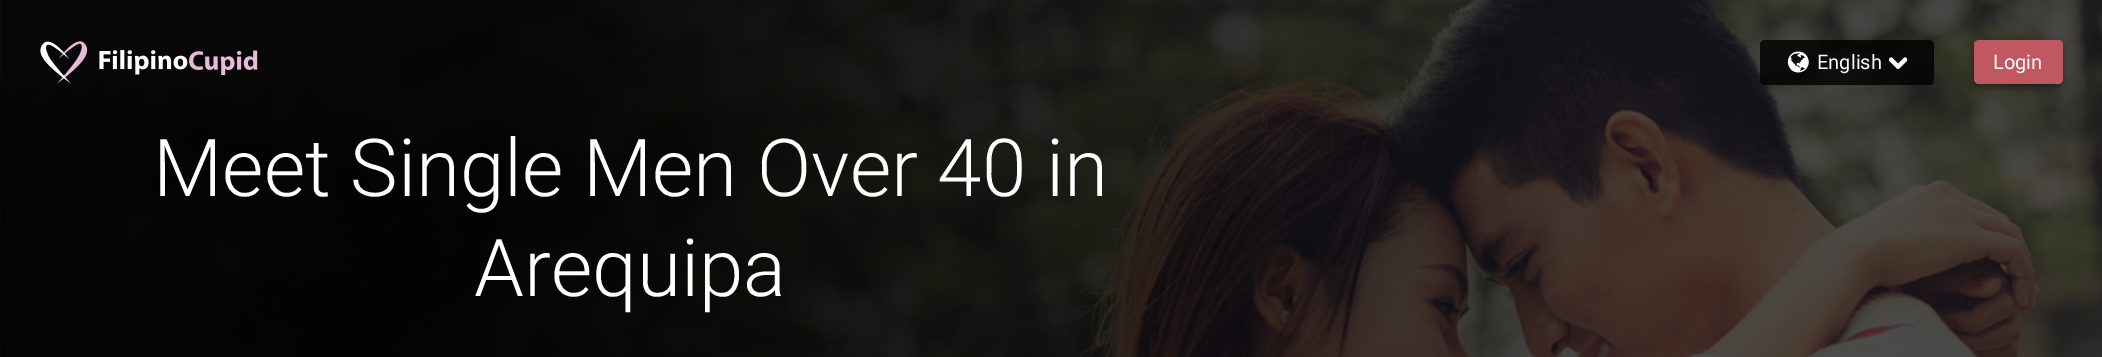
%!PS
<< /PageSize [2102 357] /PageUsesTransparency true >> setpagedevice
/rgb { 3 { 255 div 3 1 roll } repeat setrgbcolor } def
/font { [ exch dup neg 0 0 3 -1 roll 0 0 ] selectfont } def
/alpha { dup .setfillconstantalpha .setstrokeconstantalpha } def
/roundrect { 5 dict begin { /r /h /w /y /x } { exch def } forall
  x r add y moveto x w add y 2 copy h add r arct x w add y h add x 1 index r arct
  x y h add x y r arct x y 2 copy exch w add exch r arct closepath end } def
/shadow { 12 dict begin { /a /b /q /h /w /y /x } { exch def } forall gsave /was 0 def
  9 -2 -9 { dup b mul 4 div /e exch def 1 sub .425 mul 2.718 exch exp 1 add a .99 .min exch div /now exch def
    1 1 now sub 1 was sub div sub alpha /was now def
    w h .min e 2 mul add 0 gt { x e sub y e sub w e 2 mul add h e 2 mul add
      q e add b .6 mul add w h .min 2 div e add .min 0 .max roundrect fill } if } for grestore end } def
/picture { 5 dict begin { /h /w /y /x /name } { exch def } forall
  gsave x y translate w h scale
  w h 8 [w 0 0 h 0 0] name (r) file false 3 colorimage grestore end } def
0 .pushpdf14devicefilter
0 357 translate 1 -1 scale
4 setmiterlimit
255 255 255 rgb
0 0 2102 357 rectfill
(img/5.rgb) 0 0 2102 357 picture
(img/1.rgb) 40 41 48 43 picture
(img/2.rgb) 99 50 159 25 picture
0.8 alpha
0 0 0 rgb
1760 40 174 45 5 roundrect fill
1 alpha
(img/3.rgb) 1787 51 22 22 picture
(img/4.rgb) 1889 57 19 12 picture
1974 44 89 44 5 4 0.4 shadow
191 88 96 rgb
1974 40 89 44 5 roundrect fill
/Roboto-Regular 20 font
255 255 255 rgb
1817 69 moveto (English) show
1993 69 moveto (Login) show
/Roboto-Light 80 font
153 196 moveto (Meet Single Men Over 40 in) show
474 296 moveto (Arequipa) show
.poppdf14devicefilter showpage
